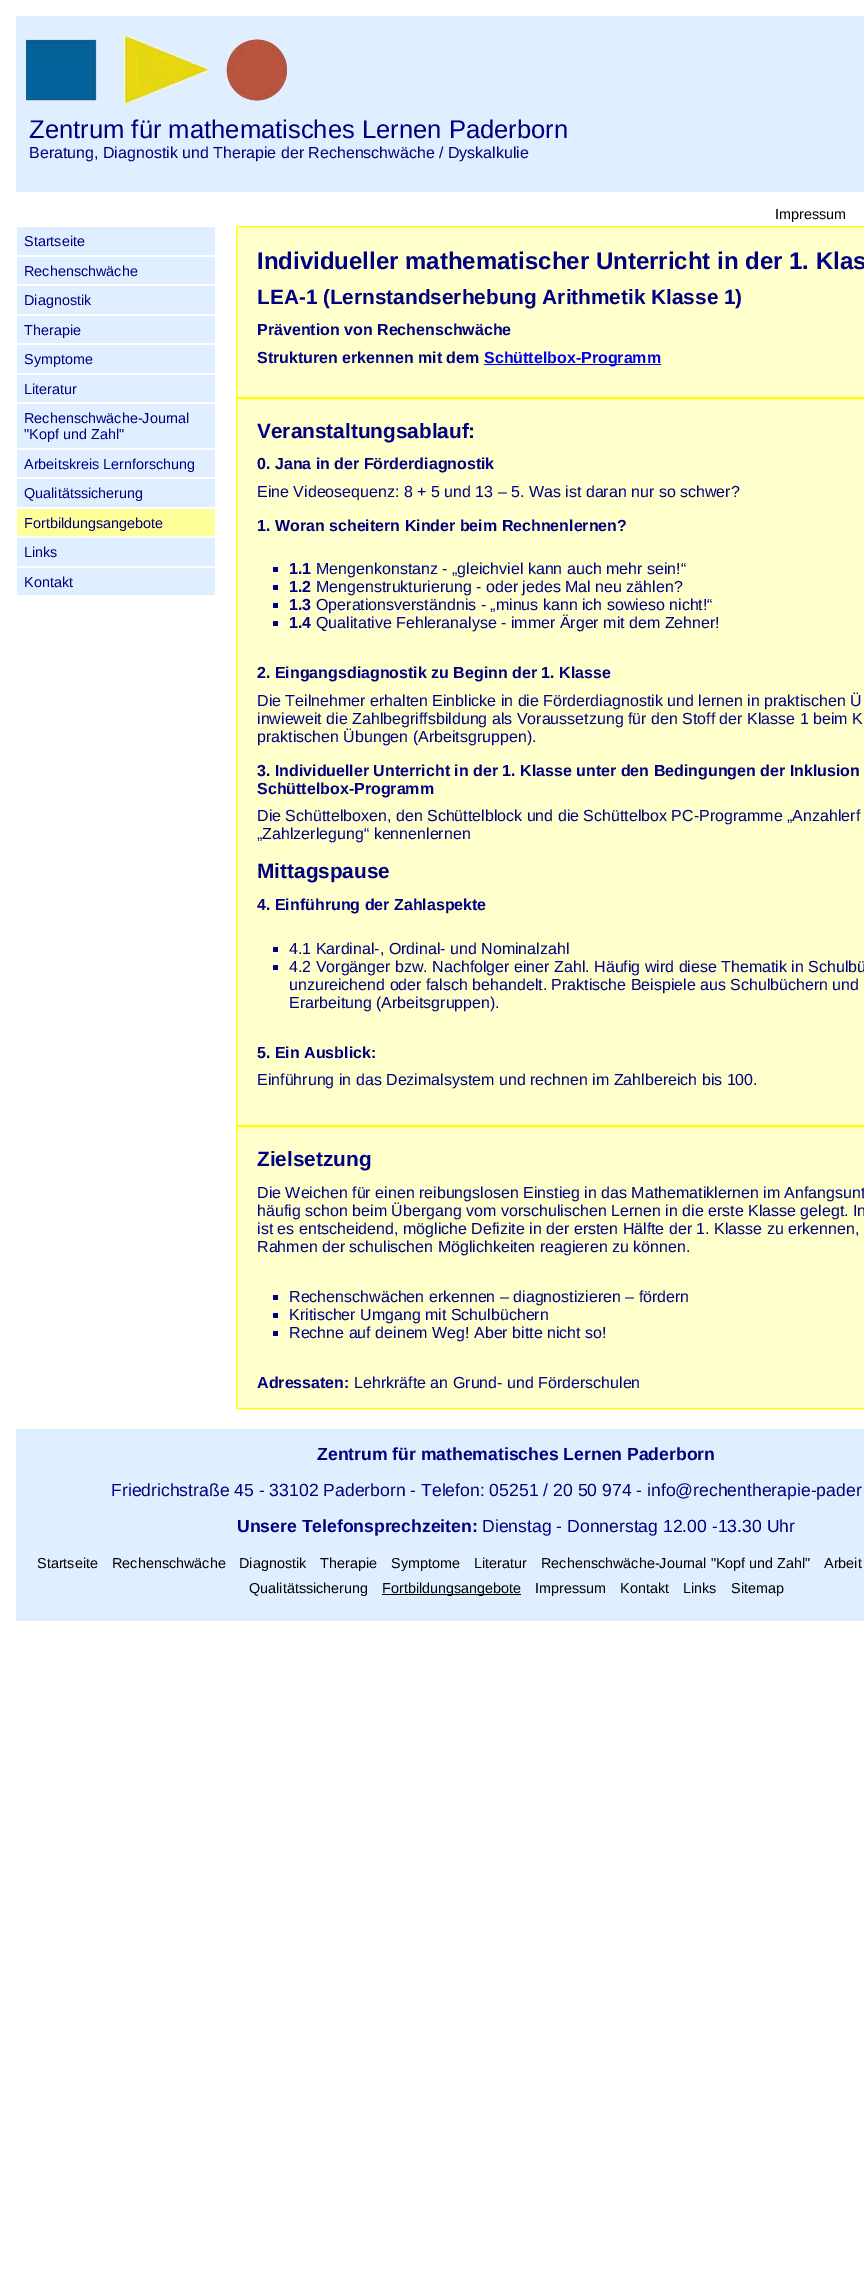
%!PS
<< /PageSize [864 2294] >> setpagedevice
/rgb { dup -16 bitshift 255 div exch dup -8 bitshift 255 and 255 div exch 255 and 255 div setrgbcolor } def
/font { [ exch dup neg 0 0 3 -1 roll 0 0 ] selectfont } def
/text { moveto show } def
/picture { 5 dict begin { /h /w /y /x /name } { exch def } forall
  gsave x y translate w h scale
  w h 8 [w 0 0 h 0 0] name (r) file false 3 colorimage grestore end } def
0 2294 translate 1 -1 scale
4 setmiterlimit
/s1 { /LiberationSans-Regular 25.6 font 16#000080 rgb } def
/s2 { /LiberationSans-Regular 16 font 16#000080 rgb } def
/s3 { /LiberationSans-Regular 14.4 font 16#000000 rgb } def
/s4 { /LiberationSans-Regular 14.4 font 16#000080 rgb } def
/s5 { /LiberationSans-Bold 24 font 16#000080 rgb } def
/s6 { /LiberationSans-Bold 20.8 font 16#000080 rgb } def
/s7 { /LiberationSans-Bold 16 font 16#000080 rgb } def
/s8 { /LiberationSans-Bold 16 font 16#0000EE rgb } def
/s9 { /LiberationSans-Bold 17.6 font 16#000080 rgb } def
/s10 { /LiberationSans-Regular 17.6 font 16#000080 rgb } def
16#FFFFFF rgb
0 0 864 2294 rectfill
16#DFEFFF rgb
16 16 848 176 rectfill
(pic1.raw) 26 36 261 68 picture
s1
(Zentrum für mathematisches Lernen Paderborn) 29 138 text
s2
(Beratung, Diagnostik und Therapie der Rechenschwäche / Dyskalkulie) 29 158 text
s3
(Impressum) 775 219 text
16#DFEFFF rgb
17 227 198 28 rectfill
s4
(Startseite) 24 246 text
16#DFEFFF rgb
17 257 198 27 rectfill
s4
(Rechenschwäche) 24 276 text
16#DFEFFF rgb
17 286 198 28 rectfill
s4
(Diagnostik) 24 305 text
16#DFEFFF rgb
17 316 198 27 rectfill
s4
(Therapie) 24 335 text
16#DFEFFF rgb
17 345 198 28 rectfill
s4
(Symptome) 24 364 text
16#DFEFFF rgb
17 375 198 27 rectfill
s4
(Literatur) 24 394 text
16#DFEFFF rgb
17 404 198 44 rectfill
s4
(Rechenschwäche-Journal) 24 423 text
("Kopf und Zahl") 24 439 text
16#DFEFFF rgb
17 450 198 27 rectfill
s4
(Arbeitskreis Lernforschung) 24 469 text
16#DFEFFF rgb
17 479 198 28 rectfill
s4
(Qualitätssicherung) 24 498 text
16#FFFF99 rgb
17 509 198 27 rectfill
s4
(Fortbildungsangebote) 24 528 text
16#DFEFFF rgb
17 538 198 28 rectfill
s4
(Links) 24 557 text
16#DFEFFF rgb
17 568 198 27 rectfill
s4
(Kontakt) 24 587 text
16#FFFFCC rgb
236.5 226.5 moveto 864.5 226.5 lineto 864.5 397.5 lineto 236.5 397.5 lineto closepath gsave fill grestore
16#FFFF00 rgb
stroke
s5
(Individueller mathematischer Unterricht in der 1. Klas) 257 269 text
s6
(LEA-1 \(Lernstandserhebung Arithmetik Klasse 1\)) 257 304 text
s7
(Prävention von Rechenschwäche) 257 335 text
(Strukturen erkennen mit dem) 257 363 text
16#0000EE rgb
484 364 177 1 rectfill
(Schüttelbox-Programm) 484 363 text
16#FFFFCC rgb
236.5 398.5 moveto 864.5 398.5 lineto 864.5 1125.5 lineto 236.5 1125.5 lineto closepath gsave fill grestore
16#FFFF00 rgb
stroke
s6
(Veranstaltungsablauf:) 257 438 text
s7
(0. Jana in der Förderdiagnostik) 257 469 text
s2
(Eine Videosequenz: 8 + 5 und 13 – 5. Was ist daran nur so schwer?) 257 497 text
s7
(1. Woran scheitern Kinder beim Rechnenlernen?) 257 531 text
273 567 5 5 rectfill
(1.1) 289 574 text
s2
(Mengenkonstanz - „gleichviel kann auch mehr sein!“) 316 574 text
273 585 5 5 rectfill
s7
(1.2) 289 592 text
s2
(Mengenstrukturierung - oder jedes Mal neu zählen?) 316 592 text
273 603 5 5 rectfill
s7
(1.3) 289 610 text
s2
(Operationsverständnis - „minus kann ich sowieso nicht!“) 316 610 text
273 621 5 5 rectfill
s7
(1.4) 289 628 text
s2
(Qualitative Fehleranalyse - immer Ärger mit dem Zehner!) 316 628 text
s7
(2. Eingangsdiagnostik zu Beginn der 1. Klasse) 257 678 text
s2
(Die Teilnehmer erhalten Einblicke in die Förderdiagnostik und lernen in praktischen Ü) 257 706 text
(inwieweit die Zahlbegriffsbildung als Voraussetzung für den Stoff der Klasse 1 beim K) 257 724 text
(praktischen Übungen \(Arbeitsgruppen\).) 257 742 text
s7
(3. Individueller Unterricht in der 1. Klasse unter den Bedingungen der Inklusion) 257 776 text
(Schüttelbox-Programm) 257 794 text
s2
(Die Schüttelboxen, den Schüttelblock und die Schüttelbox PC-Programme „Anzahlerf) 257 821 text
(„Zahlzerlegung“ kennenlernen) 257 839 text
s6
(Mittagspause) 257 878 text
s7
(4. Einführung der Zahlaspekte) 257 910 text
273 947 5 5 rectfill
s2
(4.1 Kardinal-, Ordinal- und Nominalzahl) 289 954 text
273 965 5 5 rectfill
(4.2 Vorgänger bzw. Nachfolger einer Zahl. Häufig wird diese Thematik in Schulbü) 289 972 text
(unzureichend oder falsch behandelt. Praktische Beispiele aus Schulbüchern und) 289 990 text
(Erarbeitung \(Arbeitsgruppen\).) 289 1008 text
s7
(5. Ein Ausblick:) 257 1058 text
s2
(Einführung in das Dezimalsystem und rechnen im Zahlbereich bis 100.) 257 1085 text
16#FFFFCC rgb
236.5 1126.5 moveto 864.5 1126.5 lineto 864.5 1408.5 lineto 236.5 1408.5 lineto closepath gsave fill grestore
16#FFFF00 rgb
stroke
s6
(Zielsetzung) 257 1166 text
s2
(Die Weichen für einen reibungslosen Einstieg in das Mathematiklernen im Anfangsunt) 257 1198 text
(häufig schon beim Übergang vom vorschulischen Lernen in die erste Klasse gelegt. In) 257 1216 text
(ist es entscheidend, mögliche Defizite in der ersten Hälfte der 1. Klasse zu erkennen,) 257 1234 text
(Rahmen der schulischen Möglichkeiten reagieren zu können.) 257 1252 text
273 1295 5 5 rectfill
(Rechenschwächen erkennen – diagnostizieren – fördern) 289 1302 text
273 1313 5 5 rectfill
(Kritischer Umgang mit Schulbüchern) 289 1320 text
273 1331 5 5 rectfill
(Rechne auf deinem Weg! Aber bitte nicht so!) 289 1338 text
s7
(Adressaten:) 257 1388 text
s2
(Lehrkräfte an Grund- und Förderschulen) 354 1388 text
16#DFEFFF rgb
16 1429 848 192 rectfill
s9
(Zentrum für mathematisches Lernen Paderborn) 317 1460 text
s10
(Friedrichstraße 45 - 33102 Paderborn - Telefon: 05251 / 20 50 974 - info@rechentherapie-pader) 111 1496 text
s9
(Unsere Telefonsprechzeiten:) 237 1532 text
s10
(Dienstag - Donnerstag 12.00 -13.30 Uhr) 482 1532 text
s3
(Startseite) 37 1568 text
(Rechenschwäche) 112 1568 text
(Diagnostik) 239 1568 text
(Therapie) 320 1568 text
(Symptome) 391 1568 text
(Literatur) 474 1568 text
(Rechenschwäche-Journal "Kopf und Zahl") 541 1568 text
(Arbeit) 824 1568 text
(Qualitätssicherung) 249 1593 text
382 1594 139 1 rectfill
(Fortbildungsangebote) 382 1593 text
(Impressum) 535 1593 text
(Kontakt) 620 1593 text
(Links) 683 1593 text
(Sitemap) 731 1593 text
showpage
